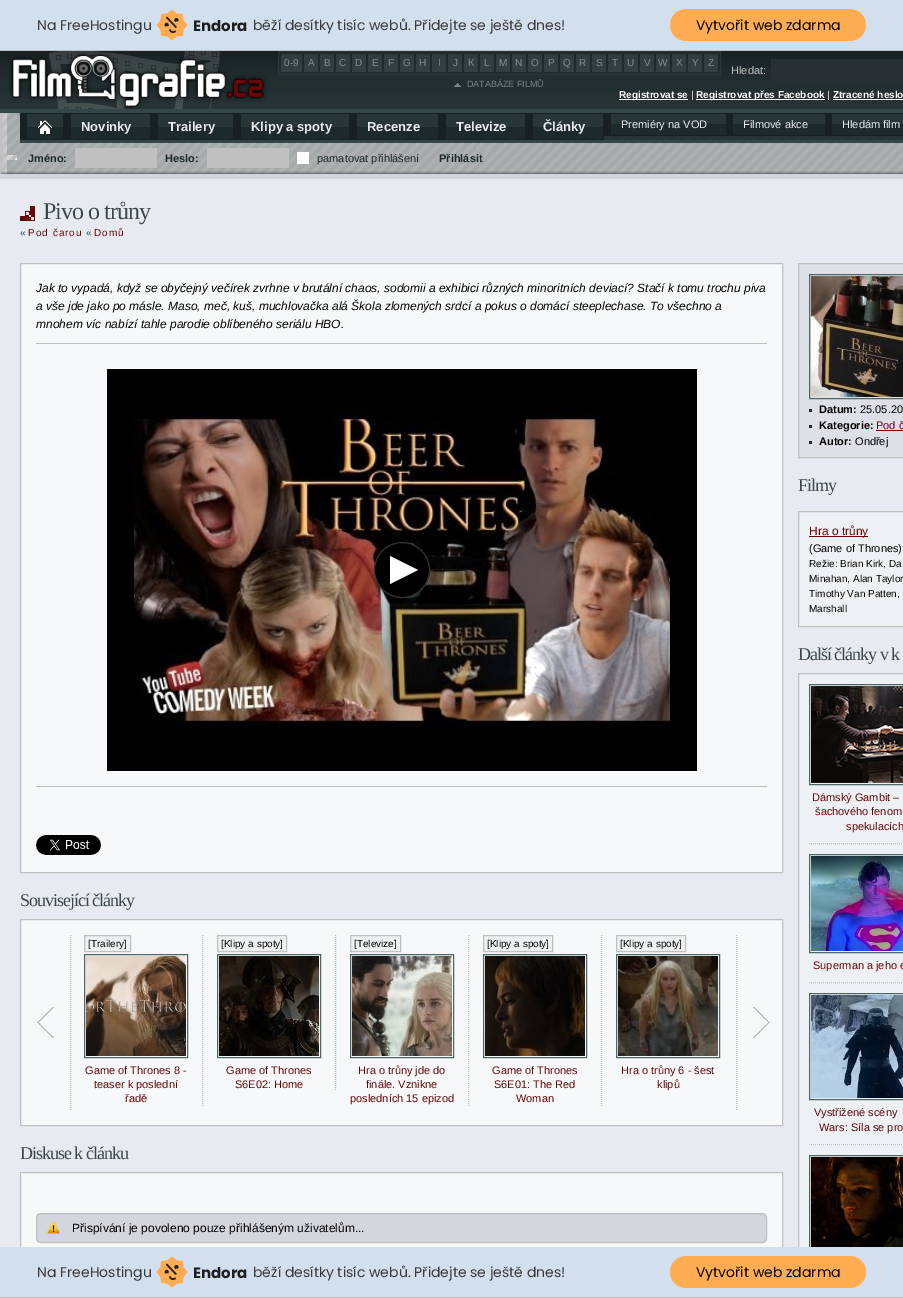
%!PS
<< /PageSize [903 1298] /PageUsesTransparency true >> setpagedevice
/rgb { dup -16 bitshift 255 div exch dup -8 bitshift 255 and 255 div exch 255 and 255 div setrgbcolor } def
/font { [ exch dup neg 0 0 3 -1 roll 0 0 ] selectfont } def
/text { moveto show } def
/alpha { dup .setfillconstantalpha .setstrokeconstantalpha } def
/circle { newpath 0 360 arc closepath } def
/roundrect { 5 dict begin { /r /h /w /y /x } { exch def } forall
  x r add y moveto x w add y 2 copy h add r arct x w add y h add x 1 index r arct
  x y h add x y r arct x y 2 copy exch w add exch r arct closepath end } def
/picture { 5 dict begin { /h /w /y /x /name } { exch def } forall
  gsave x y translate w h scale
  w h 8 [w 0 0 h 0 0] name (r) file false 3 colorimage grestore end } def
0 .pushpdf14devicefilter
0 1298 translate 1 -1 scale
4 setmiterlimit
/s1 { /Poppins-Regular 14 font 16#3A3A3A rgb } def
/s2 { /Poppins-Bold 15 font 16#1E1E1E rgb } def
/s3 { /Poppins-Regular 14 font 16#000000 rgb } def
/s4 { /LiberationSans-Regular 10 font 16#848B8C rgb } def
/s5 { /LiberationSans-Regular 9 font 16#7C8283 rgb } def
/s6 { /LiberationSans-Regular 11 font 16#C0C0C0 rgb } def
/s7 { /LiberationSans-Bold 10 font 16#FFFFFF rgb } def
/s8 { /LiberationSans-Regular 10 font 16#FFFFFF rgb } def
/s9 { /LiberationSans-Bold 13 font 16#E8EAF2 rgb } def
/s10 { /LiberationSans-Regular 11 font 16#E8EAF2 rgb } def
/s11 { /LiberationSans-Bold 11 font 16#1D2A2B rgb } def
/s12 { /LiberationSans-Regular 11 font 16#1D2A2B rgb } def
/s13 { /LiberationSans-Regular 10 font 16#14484A rgb } def
/s14 { /LiberationSans-Italic 12 font 16#000000 rgb } def
/s15 { /LiberationSans-Regular 10 font 16#000000 rgb } def
/s16 { /LiberationSans-Regular 11 font 16#670708 rgb } def
/s17 { /LiberationSans-Regular 12 font 16#000000 rgb } def
/s18 { /LiberationSans-Bold 11 font 16#000000 rgb } def
/s19 { /LiberationSans-Regular 11 font 16#000000 rgb } def
/s20 { /LiberationSans-Regular 12 font 16#670708 rgb } def
16#C0C0C0 rgb
0 0 903 1298 rectfill
16#D2DFEF rgb
0 0 903 50 rectfill
16#BEBFC4 rgb
0 50 903 1 rectfill
s1
(Na FreeHostingu) 37 30 text
(pic1.raw) 156 9 32 32 picture
s2
(Endora) 193 31 text
s1
(běží desítky tisíc webů. Přidejte se ještě dnes!) 253 30 text
16#FFAC52 rgb
670 9 196 32 16 roundrect fill
s3
(Vytvořit web zdarma) 696 30 text
(pic2.raw) 0 51 903 58 picture
(pic3.raw) 9 51 258 58 picture
0.4 alpha
16#283031 rgb
278 51 443 24 rectfill
16#354648 rgb
278.5 51.5 442 23 rectstroke
16#4A5C5E rgb
281 54 21 18 rectfill
1 alpha
s4
(0-9) 284 66 text
0.4 alpha
16#4A5C5E rgb
304 54 14 18 rectfill
1 alpha
s4
(A) 308 66 text
0.4 alpha
16#4A5C5E rgb
320 54 14 18 rectfill
1 alpha
s4
(B) 324 66 text
0.4 alpha
16#4A5C5E rgb
336 54 14 18 rectfill
1 alpha
s4
(C) 339 66 text
0.4 alpha
16#4A5C5E rgb
352 54 14 18 rectfill
1 alpha
s4
(D) 355 66 text
0.4 alpha
16#4A5C5E rgb
368 54 14 18 rectfill
1 alpha
s4
(E) 372 66 text
0.4 alpha
16#4A5C5E rgb
384 54 14 18 rectfill
1 alpha
s4
(F) 388 66 text
0.4 alpha
16#4A5C5E rgb
400 54 14 18 rectfill
1 alpha
s4
(G) 403 66 text
0.4 alpha
16#4A5C5E rgb
416 54 14 18 rectfill
1 alpha
s4
(H) 419 66 text
0.4 alpha
16#4A5C5E rgb
432 54 14 18 rectfill
1 alpha
s4
(I) 438 66 text
0.4 alpha
16#4A5C5E rgb
448 54 14 18 rectfill
1 alpha
s4
(J) 453 66 text
0.4 alpha
16#4A5C5E rgb
464 54 14 18 rectfill
1 alpha
s4
(K) 468 66 text
0.4 alpha
16#4A5C5E rgb
480 54 14 18 rectfill
1 alpha
s4
(L) 484 66 text
0.4 alpha
16#4A5C5E rgb
496 54 14 18 rectfill
1 alpha
s4
(M) 499 66 text
0.4 alpha
16#4A5C5E rgb
512 54 14 18 rectfill
1 alpha
s4
(N) 515 66 text
0.4 alpha
16#4A5C5E rgb
528 54 14 18 rectfill
1 alpha
s4
(O) 531 66 text
0.4 alpha
16#4A5C5E rgb
544 54 14 18 rectfill
1 alpha
s4
(P) 548 66 text
0.4 alpha
16#4A5C5E rgb
560 54 14 18 rectfill
1 alpha
s4
(Q) 563 66 text
0.4 alpha
16#4A5C5E rgb
576 54 14 18 rectfill
1 alpha
s4
(R) 579 66 text
0.4 alpha
16#4A5C5E rgb
592 54 14 18 rectfill
1 alpha
s4
(S) 596 66 text
0.4 alpha
16#4A5C5E rgb
608 54 14 18 rectfill
1 alpha
s4
(T) 612 66 text
0.4 alpha
16#4A5C5E rgb
624 54 14 18 rectfill
1 alpha
s4
(U) 627 66 text
0.4 alpha
16#4A5C5E rgb
640 54 14 18 rectfill
1 alpha
s4
(V) 644 66 text
0.4 alpha
16#4A5C5E rgb
656 54 14 18 rectfill
1 alpha
s4
(W) 658 66 text
0.4 alpha
16#4A5C5E rgb
672 54 14 18 rectfill
1 alpha
s4
(X) 676 66 text
0.4 alpha
16#4A5C5E rgb
688 54 14 18 rectfill
1 alpha
s4
(Y) 692 66 text
0.4 alpha
16#4A5C5E rgb
704 54 14 18 rectfill
1 alpha
s4
(Z) 708 66 text
0.4 alpha
16#283031 rgb
447 75 105 6 rectfill
1 alpha
(pic4.raw) 454 83 7 4 picture
s5
(DATABÁZE FILMŮ) 467 87 text
s6
(Hledat:) 731 74 text
16#283031 rgb
771 59 132 22 rectfill
16#FFFFFF rgb
619 99 69 1 rectfill
s7
(Registrovat se) 619 98 text
s8
(|) 691 98 text
696 99 129 1 rectfill
s7
(Registrovat přes Facebook) 696 98 text
s8
(|) 827 98 text
s7
(Ztracené heslo) 833 98 text
833 99 70 1 rectfill
(pic5.raw) 1 113 902 61 picture
16#D2D4DB rgb
0 174 903 5 rectfill
16#354648 rgb
0 109 903 4 rectfill
0.15 alpha
16#283636 rgb
17 113 3 3 rectfill
1 alpha
16#293638 rgb
27 114 876 26 rectfill
16#354648 rgb
20 140 883 3 rectfill
16#182122 rgb
20 113 883 1 rectfill
63 113 1 27 rectfill
20 139 44 1 rectfill
20 113 7 27 rectfill
16#1D2A2B rgb
27 127 36 12 rectfill
(pic6.raw) 38 120 14 14 picture
16#182122 rgb
150 113 1 27 rectfill
64 139 87 1 rectfill
64 113 7 27 rectfill
16#1D2A2B rgb
71 127 79 12 rectfill
s9
(Novinky) 81 131 text
16#182122 rgb
233 113 1 27 rectfill
151 139 83 1 rectfill
151 113 7 27 rectfill
16#1D2A2B rgb
158 127 75 12 rectfill
s9
(Trailery) 168 131 text
16#182122 rgb
349 113 1 27 rectfill
234 139 116 1 rectfill
234 113 7 27 rectfill
16#1D2A2B rgb
241 127 108 12 rectfill
s9
(Klipy a spoty) 251 131 text
16#182122 rgb
438 113 1 27 rectfill
350 139 89 1 rectfill
350 113 7 27 rectfill
16#1D2A2B rgb
357 127 81 12 rectfill
s9
(Recenze) 367 131 text
16#182122 rgb
525 113 1 27 rectfill
439 139 87 1 rectfill
439 113 7 27 rectfill
16#1D2A2B rgb
446 127 79 12 rectfill
s9
(Televize) 456 131 text
16#182122 rgb
603 113 1 27 rectfill
526 139 78 1 rectfill
526 113 7 27 rectfill
16#1D2A2B rgb
533 127 70 12 rectfill
s9
(Články) 543 131 text
16#182122 rgb
604 135 299 1 rectfill
604 113 7 23 rectfill
726 114 7 21 rectfill
16#1D2A2B rgb
611 124 115 11 rectfill
s10
(Premiéry na VOD) 621 128 text
16#182122 rgb
825 114 7 21 rectfill
16#1D2A2B rgb
733 124 92 11 rectfill
s10
(Filmové akce) 743 128 text
16#1D2A2B rgb
832 124 71 11 rectfill
s10
(Hledám film) 842 128 text
s11
(Jméno:) 28 162 text
16#C0C0C0 rgb
75 148 82 20 rectfill
s11
(Heslo:) 165 162 text
16#C0C0C0 rgb
207 148 82 20 rectfill
16#FFFFFF rgb
297 152 12 12 rectfill
s12
(pamatovat přihlášení) 317 162 text
s11
(Přihlásit) 439 162 text
16#E8EAF2 rgb
0 179 903 1068 rectfill
(pic7.raw) 20 206 15 15 picture
/LiberationSerif-Regular 24 font
16#3B4849 rgb
43 219 moveto -1 0 (Pivo o trůny) ashow
s13
(«) 20 236 text
16#670708 rgb
28 236 moveto 1 0 (Pod čarou) ashow
s13
(«) 86 236 text
16#670708 rgb
94 236 moveto 1 0 (Domů) ashow
16#F7F8F9 rgb
20.5 263.5 moveto 782.5 263.5 lineto 782.5 872.5 lineto 20.5 872.5 lineto closepath gsave fill grestore
16#C0C0C0 rgb
stroke
36 343 731 1 rectfill
s14
(Jak to vypadá, když se obyčejný večírek zvrhne v brutální chaos, sodomii a exhibici různých minoritních deviací? Stačí k tomu trochu piva) 36 292 text
(a vše jde jako po másle. Maso, meč, kuš, muchlovačka alá Škola zlomených srdcí a pokus o domácí steeplechase. To všechno a) 36 310 text
(mnohem víc nabízí tahle parodie oblíbeného seriálu HBO.) 36 328 text
107 369 590 402 rectfill
(pic8.raw) 134 405 536 322 picture
402 570 27.5 circle gsave fill grestore
16#333333 rgb
stroke
16#FFFFFF rgb
418 570 moveto 390 584 lineto 390 556 lineto closepath fill
16#C0C0C0 rgb
36 786 731 1 rectfill
(pic9.raw) 36 835 65 20 picture
/LiberationSerif-Regular 18 font
16#3B4849 rgb
20 906 moveto -1 0 (Související články) ashow
16#F7F8F9 rgb
20.5 919.5 moveto 782.5 919.5 lineto 782.5 1125.5 lineto 20.5 1125.5 lineto closepath gsave fill grestore
16#C0C0C0 rgb
stroke
(pic10.raw) 37 1007 17 31 picture
[1 1] 0 setdash
70.5 935 moveto 70.5 1110 lineto stroke
202.5 935 moveto 202.5 1106 lineto stroke
16#EDF1F4 rgb
84.5 935.5 moveto 130.5 935.5 lineto 130.5 951.5 lineto 84.5 951.5 lineto closepath gsave fill grestore
16#C0C0C0 rgb
[] 0 setdash
stroke
s15
([Trailery]) 88 947 text
16#4F6667 rgb
84.5 954.5 103 103 rectstroke
(pic11.raw) 86 956 100 100 picture
s16
(Game of Thrones 8 -) 85 1074 text
(teaser k poslední) 94 1088 text
(řadě) 125 1102 text
16#C0C0C0 rgb
[1 1] 0 setdash
335.5 935 moveto 335.5 1091 lineto stroke
16#EDF1F4 rgb
217.5 935.5 moveto 286.5 935.5 lineto 286.5 951.5 lineto 217.5 951.5 lineto closepath gsave fill grestore
16#C0C0C0 rgb
[] 0 setdash
stroke
s15
([Klipy a spoty]) 221 947 text
16#4F6667 rgb
217.5 954.5 103 103 rectstroke
(pic12.raw) 219 956 100 100 picture
s16
(Game of Thrones) 226 1074 text
(S6E02: Home) 235 1088 text
16#C0C0C0 rgb
[1 1] 0 setdash
468.5 935 moveto 468.5 1106 lineto stroke
16#EDF1F4 rgb
350.5 935.5 moveto 400.5 935.5 lineto 400.5 951.5 lineto 350.5 951.5 lineto closepath gsave fill grestore
16#C0C0C0 rgb
[] 0 setdash
stroke
s15
([Televize]) 354 947 text
16#4F6667 rgb
350.5 954.5 103 103 rectstroke
(pic13.raw) 352 956 100 100 picture
s16
(Hra o trůny jde do) 358 1074 text
(finále. Vznikne) 366 1088 text
(posledních 15 epizod) 350 1102 text
16#C0C0C0 rgb
[1 1] 0 setdash
601.5 935 moveto 601.5 1106 lineto stroke
16#EDF1F4 rgb
483.5 935.5 moveto 552.5 935.5 lineto 552.5 951.5 lineto 483.5 951.5 lineto closepath gsave fill grestore
16#C0C0C0 rgb
[] 0 setdash
stroke
s15
([Klipy a spoty]) 487 947 text
16#4F6667 rgb
483.5 954.5 103 103 rectstroke
(pic14.raw) 485 956 100 100 picture
s16
(Game of Thrones) 492 1074 text
(S6E01: The Red) 494 1088 text
(Woman) 516 1102 text
16#EDF1F4 rgb
616.5 935.5 moveto 685.5 935.5 lineto 685.5 951.5 lineto 616.5 951.5 lineto closepath gsave fill grestore
16#C0C0C0 rgb
stroke
s15
([Klipy a spoty]) 620 947 text
16#4F6667 rgb
616.5 954.5 103 103 rectstroke
(pic15.raw) 618 956 100 100 picture
s16
(Hra o trůny 6 - šest) 621 1074 text
(klipů) 657 1088 text
(pic16.raw) 753 1007 17 31 picture
16#C0C0C0 rgb
[1 1] 0 setdash
736.5 935 moveto 736.5 1110 lineto stroke
/LiberationSerif-Regular 18 font
16#3B4849 rgb
20 1159 moveto -1 0 (Diskuse k článku) ashow
16#F7F8F9 rgb
21 1173 761 74 rectfill
16#C0C0C0 rgb
[] 0 setdash
20.5 1172.5 762 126 rectstroke
16#D4D6DE rgb
36 1213 731 30 5 roundrect fill
(pic17.raw) 47 1222 13 12 picture
16#C0C0C0 rgb
36.5 1213.5 730 29 4.5 roundrect stroke
s17
(Přispívání je povoleno pouze přihlášeným uživatelům...) 72 1232 text
16#DEE0E8 rgb
798.5 263.5 moveto 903.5 263.5 lineto 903.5 457.5 lineto 798.5 457.5 lineto closepath gsave fill grestore
16#C0C0C0 rgb
stroke
16#4F6667 rgb
809.5 274.5 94 124 rectstroke
(pic18.raw) 811 276 92 121 picture
16#262626 rgb
809 409 3 3 rectfill
s18
(Datum:) 819 413 text
s19
(25.05.20) 860 413 text
16#262626 rgb
809 425 3 3 rectfill
s18
(Kategorie:) 819 429 text
s16
(Pod č) 876 429 text
876 430 27 1 rectfill
16#262626 rgb
809 441 3 3 rectfill
s18
(Autor:) 819 445 text
s19
(Ondřej) 855 445 text
/LiberationSerif-Regular 18 font
16#3B4849 rgb
798 491 moveto -1 0 (Filmy) ashow
16#EDF1F4 rgb
798.5 511.5 moveto 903.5 511.5 lineto 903.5 626.5 lineto 798.5 626.5 lineto closepath gsave fill grestore
16#C0C0C0 rgb
stroke
16#670708 rgb
809 536 59 1 rectfill
s20
(Hra o trůny) 809 535 text
s19
(\(Game of Thrones\)) 809 552 text
s15
(Režie: Brian Kirk, Da) 809 567 text
(Minahan, Alan Taylor) 809 582 text
(Timothy Van Patten,) 809 597 text
(Marshall) 809 612 text
/LiberationSerif-Regular 18 font
16#3B4849 rgb
798 660 moveto -1 0 (Další články v k) ashow
16#EDF1F4 rgb
799 674 104 573 rectfill
16#C0C0C0 rgb
798.5 673.5 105 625 rectstroke
[1 1] 0 setdash
809 843.5 moveto 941 843.5 lineto stroke
16#4F6667 rgb
[] 0 setdash
809.5 684.5 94 100 rectstroke
(pic19.raw) 811 686 92 97 picture
s16
(Dámský Gambit –) 812 801 text
(šachového fenom) 815 815 text
(spekulacích) 846 830 text
16#C0C0C0 rgb
[1 1] 0 setdash
809 982.5 moveto 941 982.5 lineto stroke
16#4F6667 rgb
[] 0 setdash
809.5 854.5 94 98 rectstroke
(pic20.raw) 811 856 92 95 picture
s16
(Superman a jeho e) 813 969 text
16#C0C0C0 rgb
[1 1] 0 setdash
809 1144.5 moveto 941 1144.5 lineto stroke
16#4F6667 rgb
[] 0 setdash
809.5 993.5 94 106 rectstroke
(pic21.raw) 811 995 92 103 picture
s16
(Vystřižené scény) 814 1116 text
(Wars: Síla se pro) 819 1131 text
16#4F6667 rgb
809.5 1155.5 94 100 rectstroke
(pic22.raw) 811 1157 92 90 picture
16#D2DFEF rgb
0 1247 903 50 rectfill
16#BEBFC4 rgb
0 1297 903 1 rectfill
s1
(Na FreeHostingu) 37 1277 text
(pic1.raw) 156 1256 32 32 picture
s2
(Endora) 193 1278 text
s1
(běží desítky tisíc webů. Přidejte se ještě dnes!) 253 1277 text
16#FFAC52 rgb
670 1256 196 32 16 roundrect fill
s3
(Vytvořit web zdarma) 696 1277 text
.poppdf14devicefilter showpage
